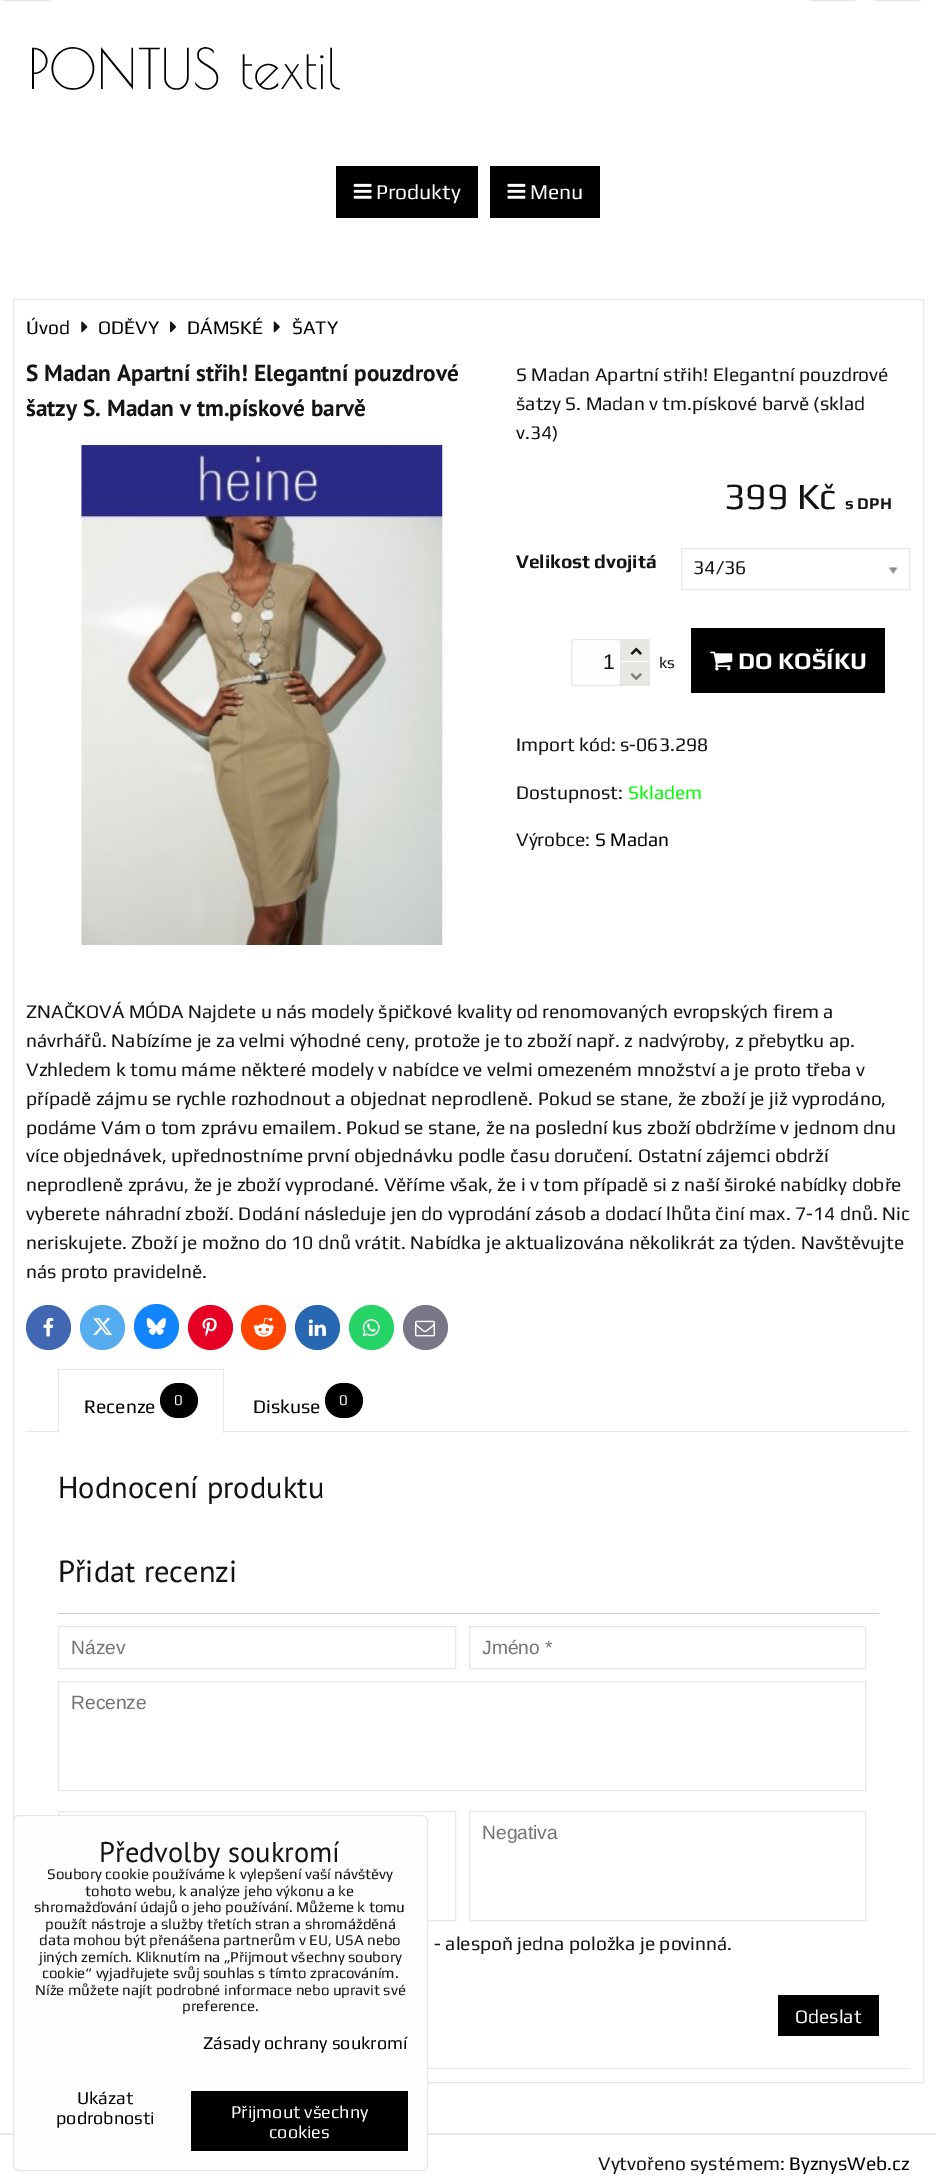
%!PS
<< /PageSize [936 2183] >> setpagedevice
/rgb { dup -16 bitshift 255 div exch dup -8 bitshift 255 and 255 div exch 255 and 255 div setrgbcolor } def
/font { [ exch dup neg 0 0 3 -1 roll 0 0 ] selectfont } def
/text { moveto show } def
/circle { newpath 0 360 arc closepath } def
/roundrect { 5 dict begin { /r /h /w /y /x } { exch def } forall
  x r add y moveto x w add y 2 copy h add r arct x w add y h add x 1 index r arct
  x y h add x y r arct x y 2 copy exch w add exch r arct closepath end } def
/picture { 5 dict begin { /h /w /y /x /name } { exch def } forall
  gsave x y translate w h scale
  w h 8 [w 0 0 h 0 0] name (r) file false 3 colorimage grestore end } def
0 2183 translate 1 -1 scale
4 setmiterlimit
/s1 { /PoiretOne-Regular 55 font 16#000000 rgb } def
/s2 { /Play-Regular 21 font 16#FFFFFF rgb } def
/s3 { /Play-Regular 19.2 font 16#000000 rgb } def
/s4 { /PTSans-Bold 23.25 font 16#141414 rgb } def
/s5 { /Play-Regular 19.2 font 16#141414 rgb } def
/s6 { /Play-Regular 37 font 16#141414 rgb } def
/s7 { /Play-Bold 16.5 font 16#141414 rgb } def
/s8 { /Play-Bold 19.2 font 16#141414 rgb } def
/s9 { /Play-Regular 19.5 font 16#141414 rgb } def
/s10 { /LiberationSans-Regular 21 font 16#141414 rgb } def
/s11 { /Play-Regular 16 font 16#141414 rgb } def
/s12 { /Play-Bold 24 font 16#FFFFFF rgb } def
/s13 { /Play-Regular 19.2 font 16#00FF00 rgb } def
/s14 { /Play-Regular 15 font 16#FFFFFF rgb } def
/s15 { /PTSans-Regular 30.5 font 16#141414 rgb } def
/s16 { /LiberationSans-Regular 19.2 font 16#757575 rgb } def
/s17 { /Play-Regular 19.2 font 16#FFFFFF rgb } def
/s18 { /PTSans-Regular 28.5 font 16#141414 rgb } def
/s19 { /Play-Regular 15 font 16#141414 rgb } def
/s20 { /Play-Regular 18 font 16#000000 rgb } def
/s21 { /Play-Regular 18 font 16#FFFFFF rgb } def
16#FFFFFF rgb
0 0 936 2183 rectfill
16#E8E7E1 rgb
3 setlinewidth
1.5 -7.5 51 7 4.5 roundrect stroke
807.5 -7.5 50 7 4.5 roundrect stroke
872.5 -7.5 50 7 4.5 roundrect stroke
s1
(PONTUS textil) 28 89 text
336 166 142 52 rectfill
(pic1.raw) 353 183 19 16 picture
s2
(Produkty) 376 199 text
16#000000 rgb
490 166 110 52 rectfill
(pic2.raw) 507 183 19 16 picture
s2
(Menu) 530 199 text
16#E8E7E1 rgb
1 setlinewidth
13.5 299.5 910 1783 rectstroke
s3
(Úvod) 26 334 text
(pic3.raw) 81 321 7 12 picture
(ODĚVY) 98 334 text
(pic4.raw) 170 321 7 12 picture
(DÁMSKÉ) 187 334 text
(pic5.raw) 273 321 7 12 picture
(ŠATY) 292 334 text
s4
(S Madan Apartní střih! Elegantní pouzdrové) 26 381 text
(šatzy S. Madan v tm.pískové barvě) 26 416 text
(pic6.raw) 81 445 362 500 picture
s5
(S Madan Apartní střih! Elegantní pouzdrové) 516 381 text
(šatzy S. Madan v tm.pískové barvě \(sklad) 516 410 text
(v.34\)) 516 439 text
s6
(399 Kč) 724 509 text
s7
(s DPH) 845 509 text
s8
(Velikost dvojitá) 516 568 text
16#E8E7E1 rgb
681.5 548.5 228 41 rectstroke
s9
(34/36) 693 574 text
(pic7.raw) 888 567 10 7 picture
16#E8E7E1 rgb
617 639 33 47 rectfill
16#FEFEFE rgb
571.5 639.5 49 46 3.5 roundrect gsave fill grestore
16#E8E7E1 rgb
stroke
s10
(1) 603 669 text
(pic8.raw) 630 647 12 8 picture
16#FFFFFF rgb
621 661 29 1 rectfill
(pic9.raw) 630 673 12 8 picture
s11
(ks) 659 668 text
16#000000 rgb
691 628 194 65 rectfill
(pic10.raw) 710 651 23 20 picture
s12
(DO KOŠÍKU) 738 669 text
s5
(Import kód: s-063.298) 516 751 text
(Dostupnost:) 516 799 text
s13
(Skladem) 628 799 text
s5
(Výrobce:) 516 846 text
s3
(S Madan) 595 846 text
s5
(ZNAČKOVÁ MÓDA Najdete u nás modely špičkové kvality od renomovaných evropských firem a) 26 1018 text
(návrhářů. Nabízíme je za velmi výhodné ceny, protože je to zboží např. z nadvýroby, z přebytku ap.) 26 1047 text
(Vzhledem k tomu máme některé modely v nabídce ve velmi omezeném množství a je proto třeba v) 26 1076 text
(případě zájmu se rychle rozhodnout a objednat neprodleně. Pokud se stane, že zboží je již vyprodáno,) 26 1105 text
(podáme Vám o tom zprávu emailem. Pokud se stane, že na poslední kus zboží obdržíme v jednom dnu) 26 1134 text
(více objednávek, upřednostníme první objednávku podle času doručení. Ostatní zájemci obdrží) 26 1162 text
(neprodleně zprávu, že je zboží vyprodané. Věříme však, že i v tom případě si z naší široké nabídky dobře) 26 1191 text
(vyberete náhradní zboží. Dodání následuje jen do vyprodání zásob a dodací lhůta činí max. 7-14 dnů. Nic) 26 1220 text
(neriskujete. Zboží je možno do 10 dnů vrátit. Nabídka je aktualizována několikrát za týden. Navštěvujte) 26 1249 text
(nás proto pravidelně.) 26 1278 text
16#4267B2 rgb
48.5 1327.5 22.5 circle fill
(pic11.raw) 43 1317 11 20 picture
16#55ACEE rgb
102.5 1327.5 22.5 circle fill
(pic12.raw) 93 1318 19 17 picture
16#1185FE rgb
156.5 1326.5 22.5 circle fill
(pic13.raw) 146 1318 20 17 picture
16#E60023 rgb
210.5 1327.5 22.5 circle fill
(pic14.raw) 202 1317 15 20 picture
16#FF4500 rgb
263.5 1327.5 22.5 circle fill
(pic15.raw) 253 1317 21 20 picture
16#2867B2 rgb
317.5 1327.5 22.5 circle fill
(pic16.raw) 308 1319 18 17 picture
16#25D366 rgb
371.5 1327.5 22.5 circle fill
(pic17.raw) 362 1319 18 18 picture
16#777788 rgb
425.5 1327.5 22.5 circle fill
(pic18.raw) 415 1320 20 17 picture
16#E8E7E1 rgb
26 1431 884 1 rectfill
16#FFFFFF rgb
59 1431 164 1 rectfill
16#E8E7E1 rgb
58 1369 166 1 rectfill
223 1369 1 64 rectfill
58 1369 1 64 rectfill
s3
(Recenze) 84 1413 text
160 1383 38 35 17.5 roundrect fill
s14
(0) 174 1405 text
s3
(Diskuse) 253 1413 text
325 1383 38 35 17.5 roundrect fill
s14
(0) 339 1405 text
16#E8E7E1 rgb
428 2068 482 1 rectfill
s15
(Hodnocení produktu) 58 1498 text
(Přidat recenzi) 58 1582 text
16#CCCCCC rgb
58 1613 821 1 rectfill
16#E8E7E1 rgb
58.5 1626.5 397 42 rectstroke
s16
(Název) 71 1654 text
16#E8E7E1 rgb
469.5 1626.5 396 42 rectstroke
gsave
483 1636 370 23 rectclip
s16
(Jméno *) 482 1654 text
grestore
58.5 1681.5 807 109 rectstroke
s16
(Recenze) 71 1709 text
16#E8E7E1 rgb
58.5 1811.5 397 109 rectstroke
469.5 1811.5 396 109 rectstroke
s16
(Negativa) 482 1839 text
s5
(- alespoň jedna položka je povinná.) 434 1950 text
16#000000 rgb
778 1995 101 41 rectfill
s17
(Odeslat) 795 2023 text
16#E8E7E1 rgb
0 2133 936 2 rectfill
s5
(Vytvořeno systémem:) 598 2170 text
s3
(ByznysWeb.cz) 789 2170 text
16#FEFEFE rgb
13.5 1815.5 414 355 5.5 roundrect gsave fill grestore
16#E8E7E1 rgb
stroke
s18
(Předvolby soukromí) 99 1862 text
s19
(Soubory cookie používáme k vylepšení vaší návštěvy) 47 1879 text
(tohoto webu, k analýze jeho výkonu a ke) 85 1896 text
(shromažďování údajů o jeho používání. Můžeme k tomu) 34 1912 text
(použít nástroje a služby třetích stran a shromážděná) 45 1929 text
(data mohou být přenášena partnerům v EU, USA nebo) 39 1945 text
(jiných zemích. Kliknutím na „Přijmout všechny soubory) 39 1962 text
(cookie“ vyjadřujete svůj souhlas s tímto zpracováním.) 42 1978 text
(Níže můžete najít podrobné informace nebo upravit své) 35 1995 text
(preference.) 182 2011 text
s20
(Zásady ochrany soukromí) 203 2049 text
(Ukázat) 77 2104 text
(podrobnosti) 56 2124 text
191 2091 217 60 rectfill
s21
(Přijmout všechny) 231 2118 text
(cookies) 269 2138 text
showpage
